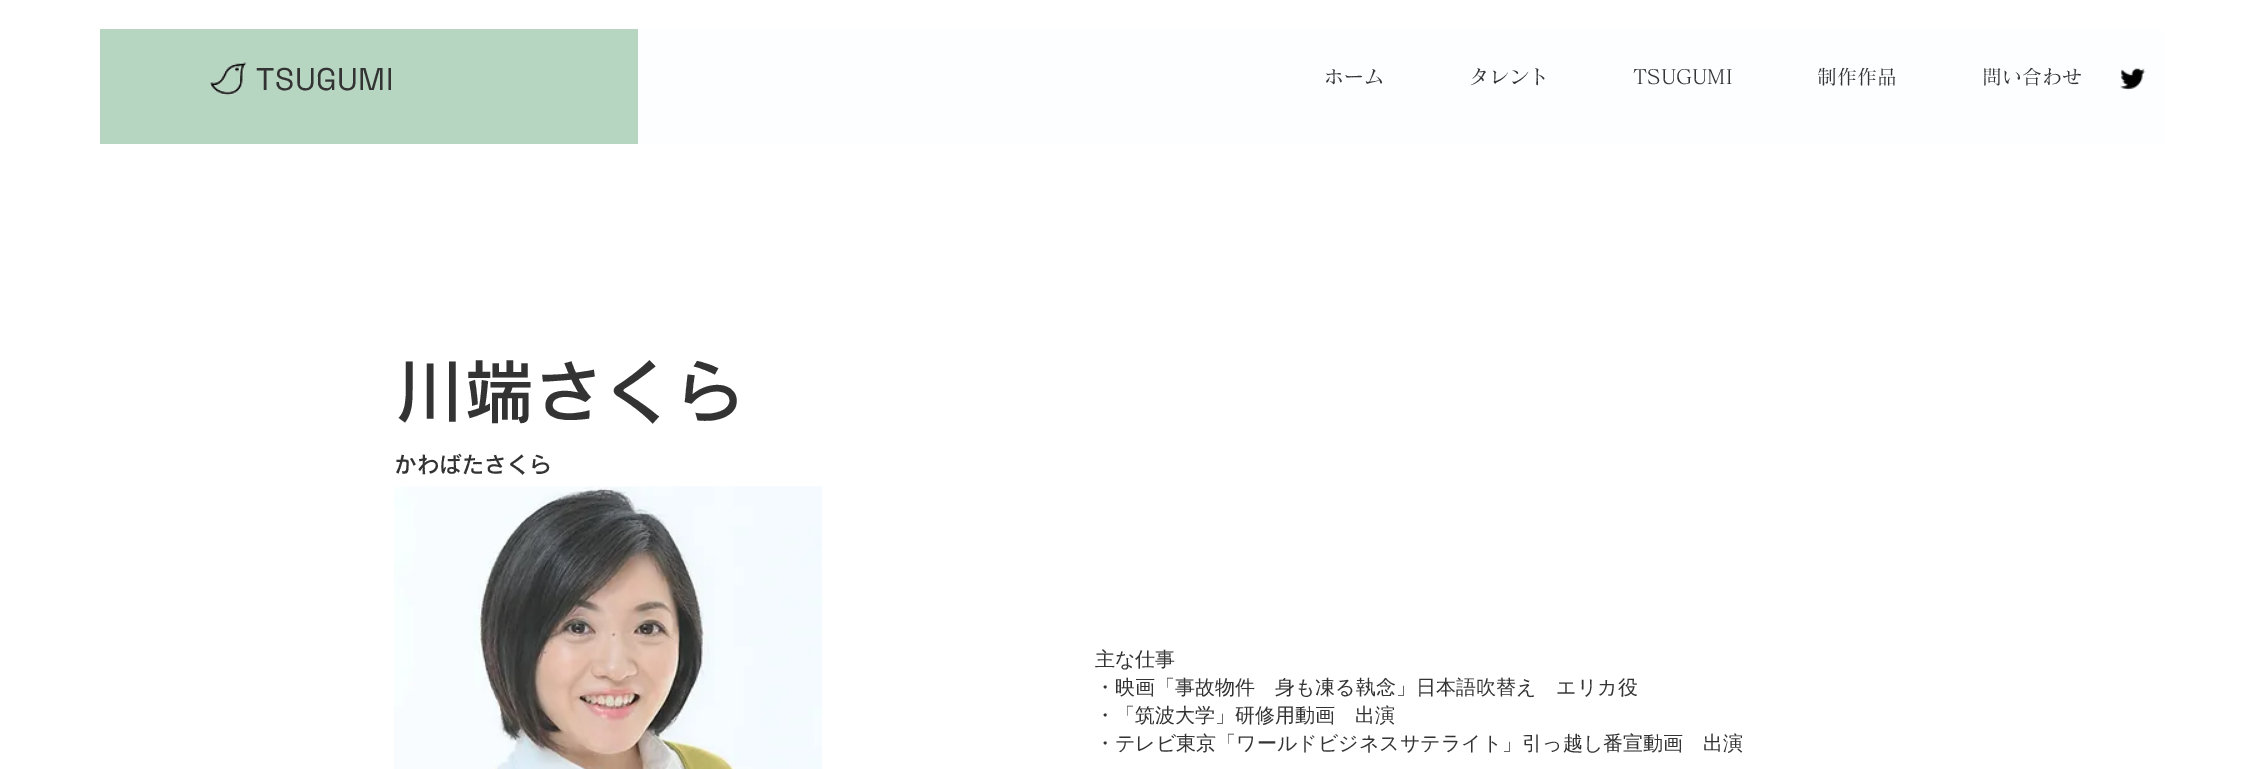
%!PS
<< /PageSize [2263 769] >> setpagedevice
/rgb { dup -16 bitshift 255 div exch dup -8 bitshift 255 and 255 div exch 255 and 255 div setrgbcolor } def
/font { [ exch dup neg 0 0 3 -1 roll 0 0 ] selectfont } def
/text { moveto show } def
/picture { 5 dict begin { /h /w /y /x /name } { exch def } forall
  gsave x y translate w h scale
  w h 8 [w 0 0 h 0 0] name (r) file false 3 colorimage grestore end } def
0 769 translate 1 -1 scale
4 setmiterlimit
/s1 { /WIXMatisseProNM-Medium 20 font 16#333333 rgb } def
/s2 { /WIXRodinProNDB-SemiBold 70 font 16#333333 rgb } def
/s3 { /WIXRodinProNDB-SemiBold 22.5 font 16#333333 rgb } def
/s4 { /WenQuanYiZenHei-Medium 20 font 16#333333 rgb } def
16#FFFFFF rgb
0 0 2263 769 rectfill
16#B6D6C1 rgb
100 29 538 115 rectfill
(pic1.raw) 210 61 37 35 picture
/SpaceGrotesk-Regular 31.25 font
16#333333 rgb
256 90 moveto 0.5 0 (TSUGUMI) ashow
16#FCFEFF rgb
638 29 1526 115 rectfill
s1
(ホーム) 1324 84 text
(タレント) 1469 84 text
(TSUGUMI) 1633 84 text
(制作作品) 1817 84 text
(問い合わせ) 1982 84 text
(pic2.raw) 2120 68 26 22 picture
s2
(川端さくら) 394 418 text
s3
(かわばたさくら) 394 473 text
(pic3.raw) 394 486 428 283 picture
s4
(主な仕事) 1095 666 text
(・映画「事故物件　身も凍る執念」日本語吹替え　エリカ役) 1095 694 text
(・「筑波大学」研修用動画　出演) 1095 722 text
(・テレビ東京「ワールドビジネスサテライト」引っ越し番宣動画　出演) 1095 750 text
showpage
